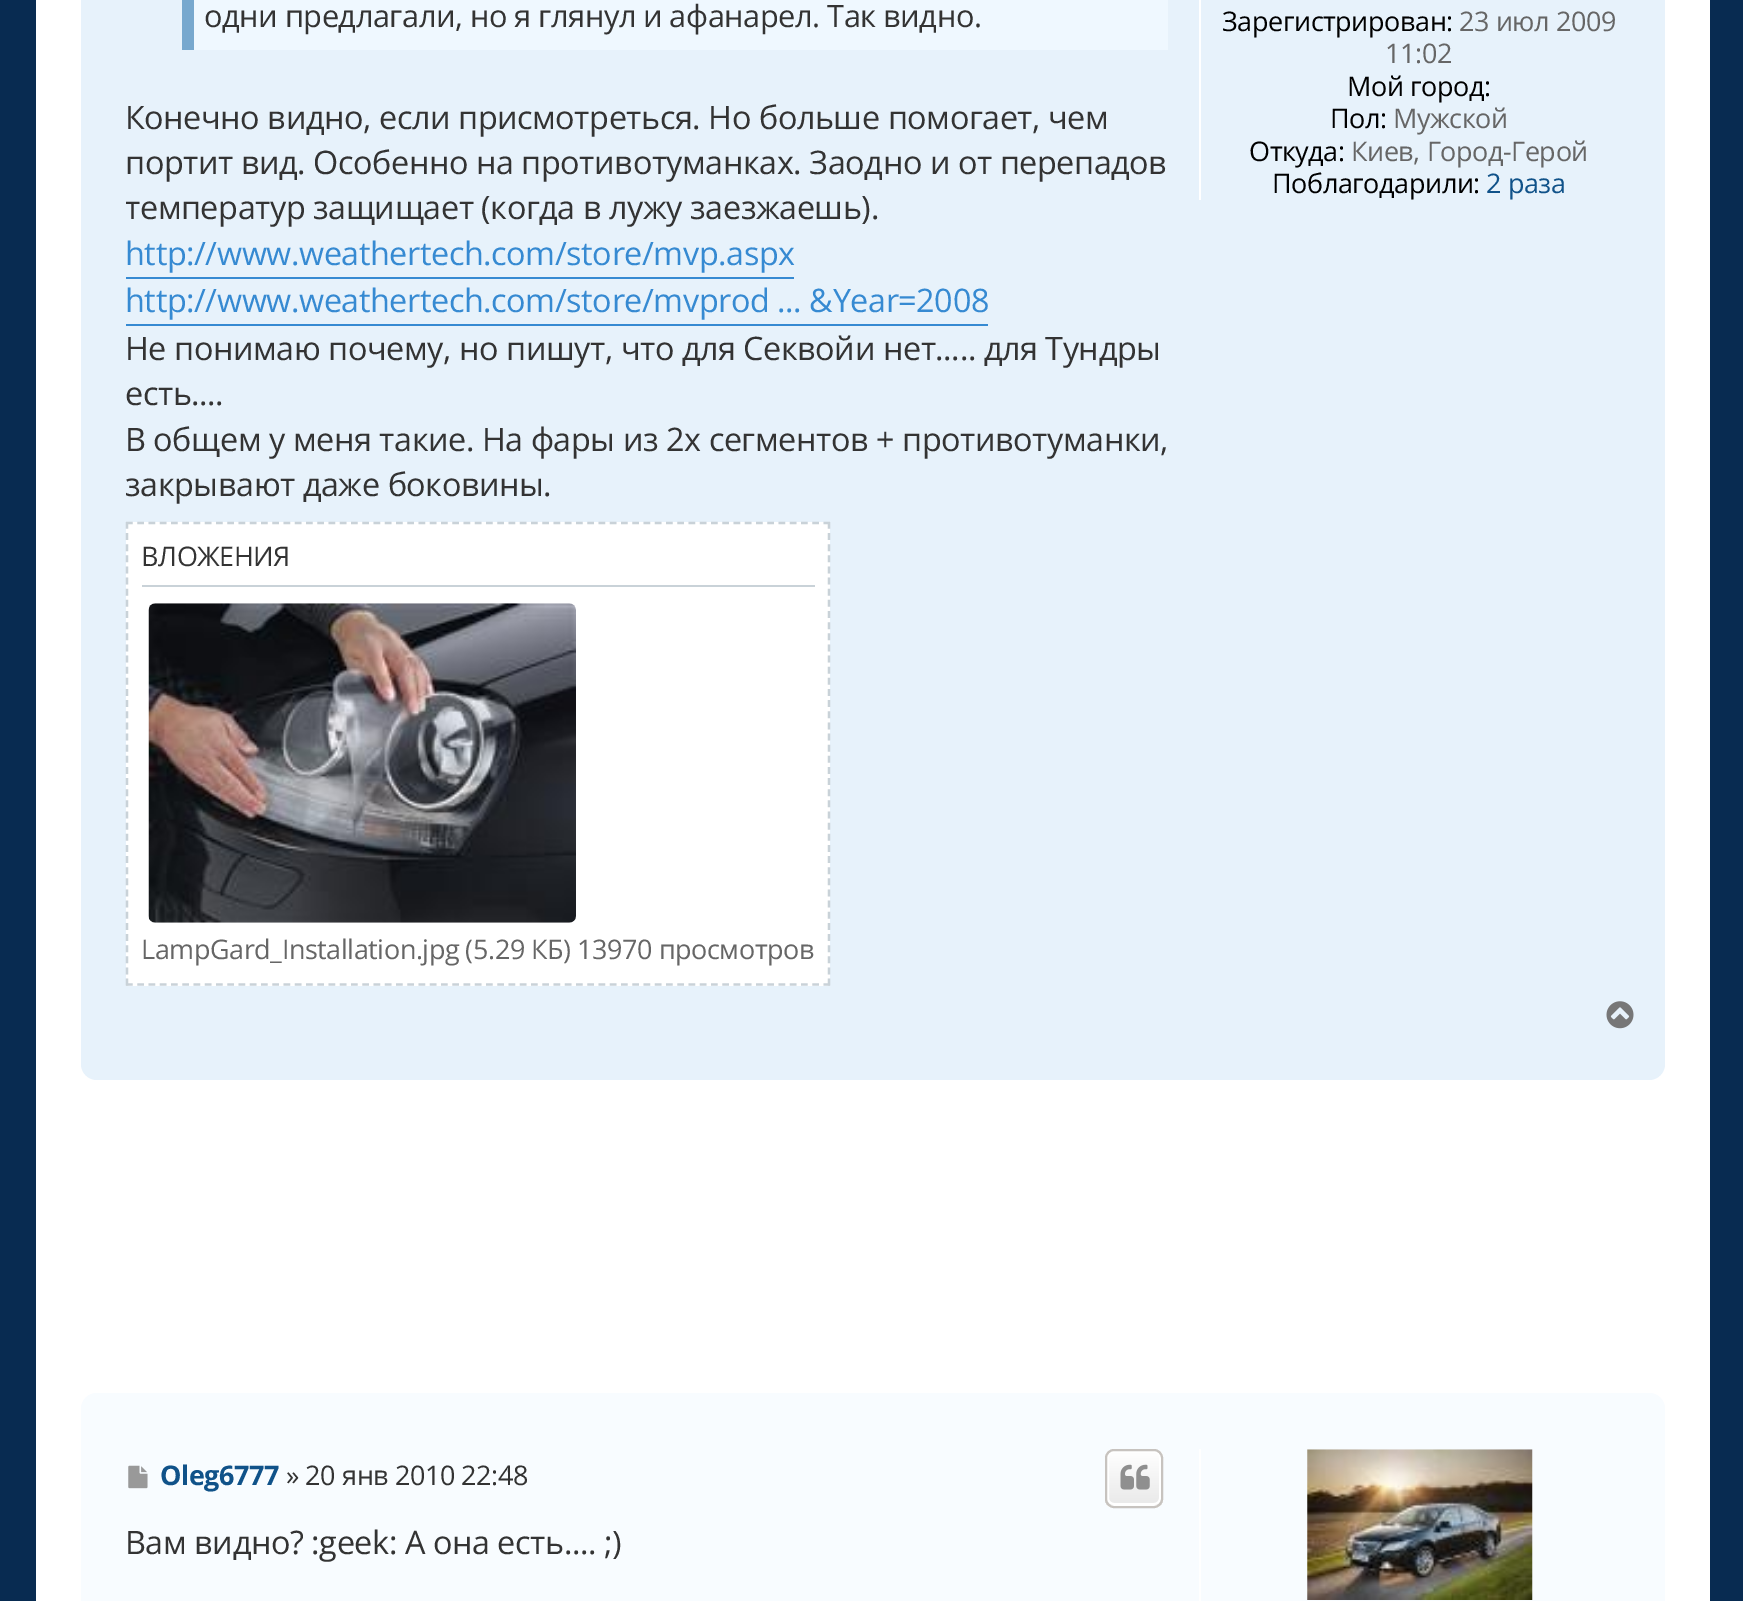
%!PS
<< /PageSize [1743 1601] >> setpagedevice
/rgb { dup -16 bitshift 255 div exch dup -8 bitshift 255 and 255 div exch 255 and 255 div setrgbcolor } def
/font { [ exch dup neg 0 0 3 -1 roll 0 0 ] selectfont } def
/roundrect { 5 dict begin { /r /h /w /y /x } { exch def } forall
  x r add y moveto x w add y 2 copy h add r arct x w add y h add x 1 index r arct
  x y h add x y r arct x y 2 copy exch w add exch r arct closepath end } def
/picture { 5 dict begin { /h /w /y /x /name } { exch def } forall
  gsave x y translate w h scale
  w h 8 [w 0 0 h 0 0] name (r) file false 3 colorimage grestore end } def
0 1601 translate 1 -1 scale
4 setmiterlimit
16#082B51 rgb
0 0 1743 1601 rectfill
16#FFFFFF rgb
36 0 1674 1601 rectfill
16#E7F2FB rgb
81 -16 1584 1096 16 roundrect fill
16#EFF8FF rgb
194 0 974 50 rectfill
16#77A8CE rgb
182 0 12 50 rectfill
/OpenSans-Regular 30.75 font
16#333333 rgb
204 27 moveto -0.25 0 32 -0.45 0 (одни предлагали, но я глянул и афанарел. Так видно.) awidthshow
/OpenSans-Regular 32.4 font
125 129 moveto -0.45 0 (Конечно видно, если присмотреться. Но больше помогает, чем) ashow
125 174 moveto -0.45 0 (портит вид. Особенно на противотуманках. Заодно и от перепадов) ashow
gsave
126 0 1044 511 rectclip
125 219 moveto -0.45 0 (температур защищает \(когда в лужу заезжаешь\).) ashow
grestore
16#368AD2 rgb
126 277 668 2 rectfill
125 265 moveto -0.45 0 (http://www.weathertech.com/store/mvp.aspx) ashow
126 324 862 2 rectfill
125 312 moveto -0.45 0 (http://www.weathertech.com/store/mvprod ... &Year=2008) ashow
16#333333 rgb
125 360 moveto -0.45 0 (Не понимаю почему, но пишут, что для Секвойи нет..... для Тундры) ashow
125 405 moveto -0.45 0 (есть....) ashow
125 451 moveto -0.45 0 (В общем у меня такие. На фары из 2х сегментов + противотуманки,) ashow
125 496 moveto -0.45 0 (закрывают даже боковины.) ashow
16#FFFFFF rgb
126 522 704 464 rectfill
16#C9D2D8 rgb
2.2 setlinewidth
[6.75 4.5] 0 setdash
126 523 moveto 830 523 lineto stroke
[6.75 4.39] 0 setdash
829 522 moveto 829 985.5 lineto stroke
[6.75 4.5] 0 setdash
126 984.5 moveto 830 984.5 lineto stroke
[6.75 4.39] 0 setdash
127 522 moveto 127 985.5 lineto stroke
/OpenSans-Regular 27 font
16#333333 rgb
141 566 moveto -0.45 0 (ВЛОЖЕНИЯ) ashow
16#C9D2D8 rgb
142 585 673 2 rectfill
(pic1.raw) 148 603 428 320 picture
16#666666 rgb
141 959 moveto -0.45 0 (LampGard_Installation.jpg \(5.29 КБ\) 13970 просмотров) ashow
16#FFFFFF rgb
1199 0 2 200 rectfill
16#000000 rgb
1222 31 moveto -0.45 0 (Зарегистрирован:) ashow
16#666666 rgb
1459 31 moveto -0.45 0 (23 июл 2009) ashow
1385 63 moveto -0.45 0 (11:02) ashow
16#000000 rgb
1347 96 moveto -0.45 0 (Мой город:) ashow
1330 128 moveto -0.45 0 (Пол:) ashow
16#666666 rgb
1393 128 moveto -0.45 0 (Мужской) ashow
16#000000 rgb
1249 161 moveto -0.45 0 (Откуда:) ashow
16#666666 rgb
1351 161 moveto -0.45 0 (Киев, Город-Герой) ashow
16#000000 rgb
1272 193 moveto -0.45 0 (Поблагодарили:) ashow
16#105289 rgb
1486 193 moveto -0.45 0 (2 раза) ashow
(pic2.raw) 1606 1001 28 28 picture
16#F8FCFF rgb
81 1393 1584 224 16 roundrect fill
(pic3.raw) 128 1465 20 24 picture
/OpenSans-Bold 27 font
16#105289 rgb
160 1485 moveto -0.45 0 (Oleg6777) ashow
/OpenSans-Regular 27 font
16#333333 rgb
286 1485 moveto -0.45 0 (» 20 янв 2010 22:48) ashow
gsave
1105 1449 58 59 9 roundrect clip newpath
gsave 1105 1451 moveto 1163 1451 lineto 1163 1505 lineto 1105 1505 lineto closepath clip newpath
<< /ShadingType 2 /ColorSpace /DeviceRGB /Coords [1134 1451 1134 1505] /Extend [true true] /Function << /FunctionType 2 /Domain [0 1] /C0 [1 1 1] /C1 [0.914 0.914 0.914] /N 1 >> >> shfill grestore
gsave 1105 1505 moveto 1163 1505 lineto 1163 1508 lineto 1105 1508 lineto closepath clip newpath
<< /ShadingType 2 /ColorSpace /DeviceRGB /Coords [1134 1505 1134 1559] /Extend [true true] /Function << /FunctionType 2 /Domain [0 1] /C0 [1 1 1] /C1 [0.914 0.914 0.914] /N 1 >> >> shfill grestore
grestore
16#FFFFFF rgb
2 setlinewidth
[] 0 setdash
1108 1452 52 52 6 roundrect stroke
16#C7C3BF rgb
1106 1450 56 57 8 roundrect stroke
(pic4.raw) 1120 1464 30 26 picture
/OpenSans-Regular 32.4 font
16#333333 rgb
125 1554 moveto -0.45 0 (Вам видно? :geek: А она есть.... ;\)) ashow
16#FFFFFF rgb
1199 1449 2 152 rectfill
(pic5.raw) 1307 1449 226 151 picture
showpage
